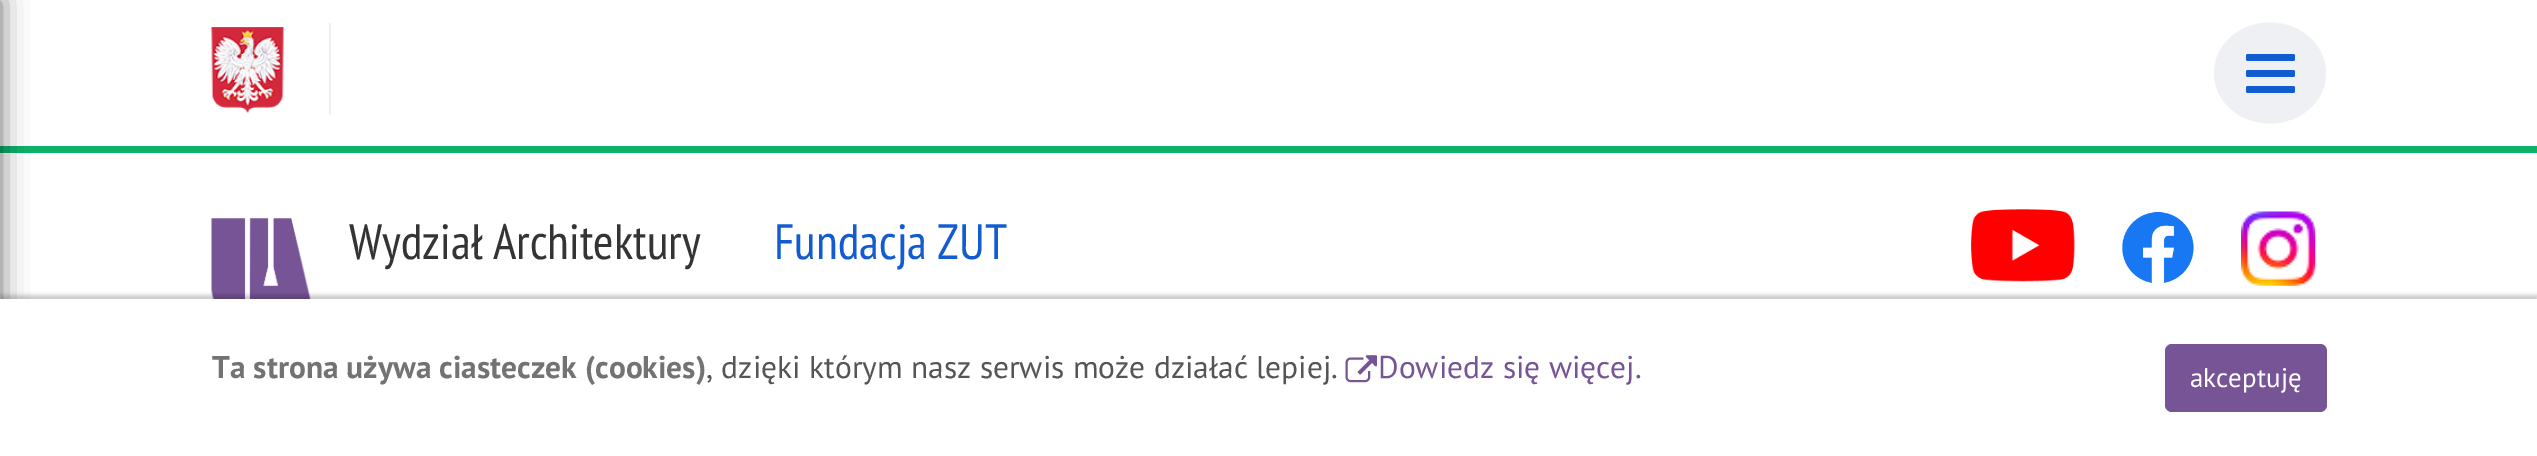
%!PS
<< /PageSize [2537 456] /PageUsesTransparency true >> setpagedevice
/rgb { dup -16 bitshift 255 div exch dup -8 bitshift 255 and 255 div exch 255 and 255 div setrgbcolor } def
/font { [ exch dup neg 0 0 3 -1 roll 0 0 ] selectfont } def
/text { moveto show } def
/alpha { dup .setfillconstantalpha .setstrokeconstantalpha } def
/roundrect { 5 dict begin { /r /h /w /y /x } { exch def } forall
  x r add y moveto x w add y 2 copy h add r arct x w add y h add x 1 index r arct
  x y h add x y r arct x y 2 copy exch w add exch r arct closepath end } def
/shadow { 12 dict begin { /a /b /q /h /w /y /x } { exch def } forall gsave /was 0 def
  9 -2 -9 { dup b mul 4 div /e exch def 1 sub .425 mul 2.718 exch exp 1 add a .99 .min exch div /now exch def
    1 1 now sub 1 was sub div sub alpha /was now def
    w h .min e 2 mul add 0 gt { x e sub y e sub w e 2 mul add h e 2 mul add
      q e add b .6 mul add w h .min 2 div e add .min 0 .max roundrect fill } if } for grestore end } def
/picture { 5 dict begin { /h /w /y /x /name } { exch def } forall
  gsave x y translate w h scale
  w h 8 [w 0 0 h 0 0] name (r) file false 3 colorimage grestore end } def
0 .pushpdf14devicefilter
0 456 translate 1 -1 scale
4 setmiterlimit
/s1 { /PTSansNarrow-Regular 49.5 font 16#343434 rgb } def
/s2 { /PTSansNarrow-Regular 49.5 font 16#125BD0 rgb } def
/s3 { /PTSans-Bold 31.5 font 16#737373 rgb } def
/s4 { /PTSans-Regular 31.5 font 16#555555 rgb } def
/s5 { /PTSans-Regular 31.5 font 16#775496 rgb } def
/s6 { /PTSans-Regular 27 font 16#FFFFFF rgb } def
16#FFFFFF rgb
0 0 2537 456 rectfill
(pic1.raw) 211 27 73 86 picture
16#EEF0F3 rgb
329 23 2 92 rectfill
2270 22.5 moveto 2301 22.5 2326 45 2326 73 curveto 2326 101 2301 123.5 2270 123.5 curveto 2239 123.5 2214 101 2214 73 curveto 2214 45 2239 22.5 2270 22.5 curveto closepath fill
16#125BD0 rgb
2246 54 49 7 2 roundrect fill
2246 70 49 7 2 roundrect fill
2246 86 49 7 2 roundrect fill
16#0DB16A rgb
0 146 2537 7 rectfill
16#000000 rgb
-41 0 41 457 0 13.5 0.6 shadow
(pic2.raw) 211 218 100 81 picture
s1
(Wydział Architektury) 349 259 text
s2
(Fundacja ZUT) 774 259 text
(pic3.raw) 1971 209 104 73 picture
(pic4.raw) 2122 212 72 71 picture
(pic5.raw) 2241 211 75 75 picture
16#000000 rgb
0 295 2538 157 0 2 0.2 shadow
16#FFFFFF rgb
0 299 2537 157 rectfill
s3
(Ta strona używa ciasteczek \(cookies\)) 212 378 text
s4
(, dzięki którym nasz serwis może działać lepiej.) 706 378 text
(pic6.raw) 1345 355 32 28 picture
s5
(Dowiedz się więcej.) 1378 378 text
2165 344 162 68 7 roundrect fill
s6
(akceptuję) 2190 387 text
.poppdf14devicefilter showpage
